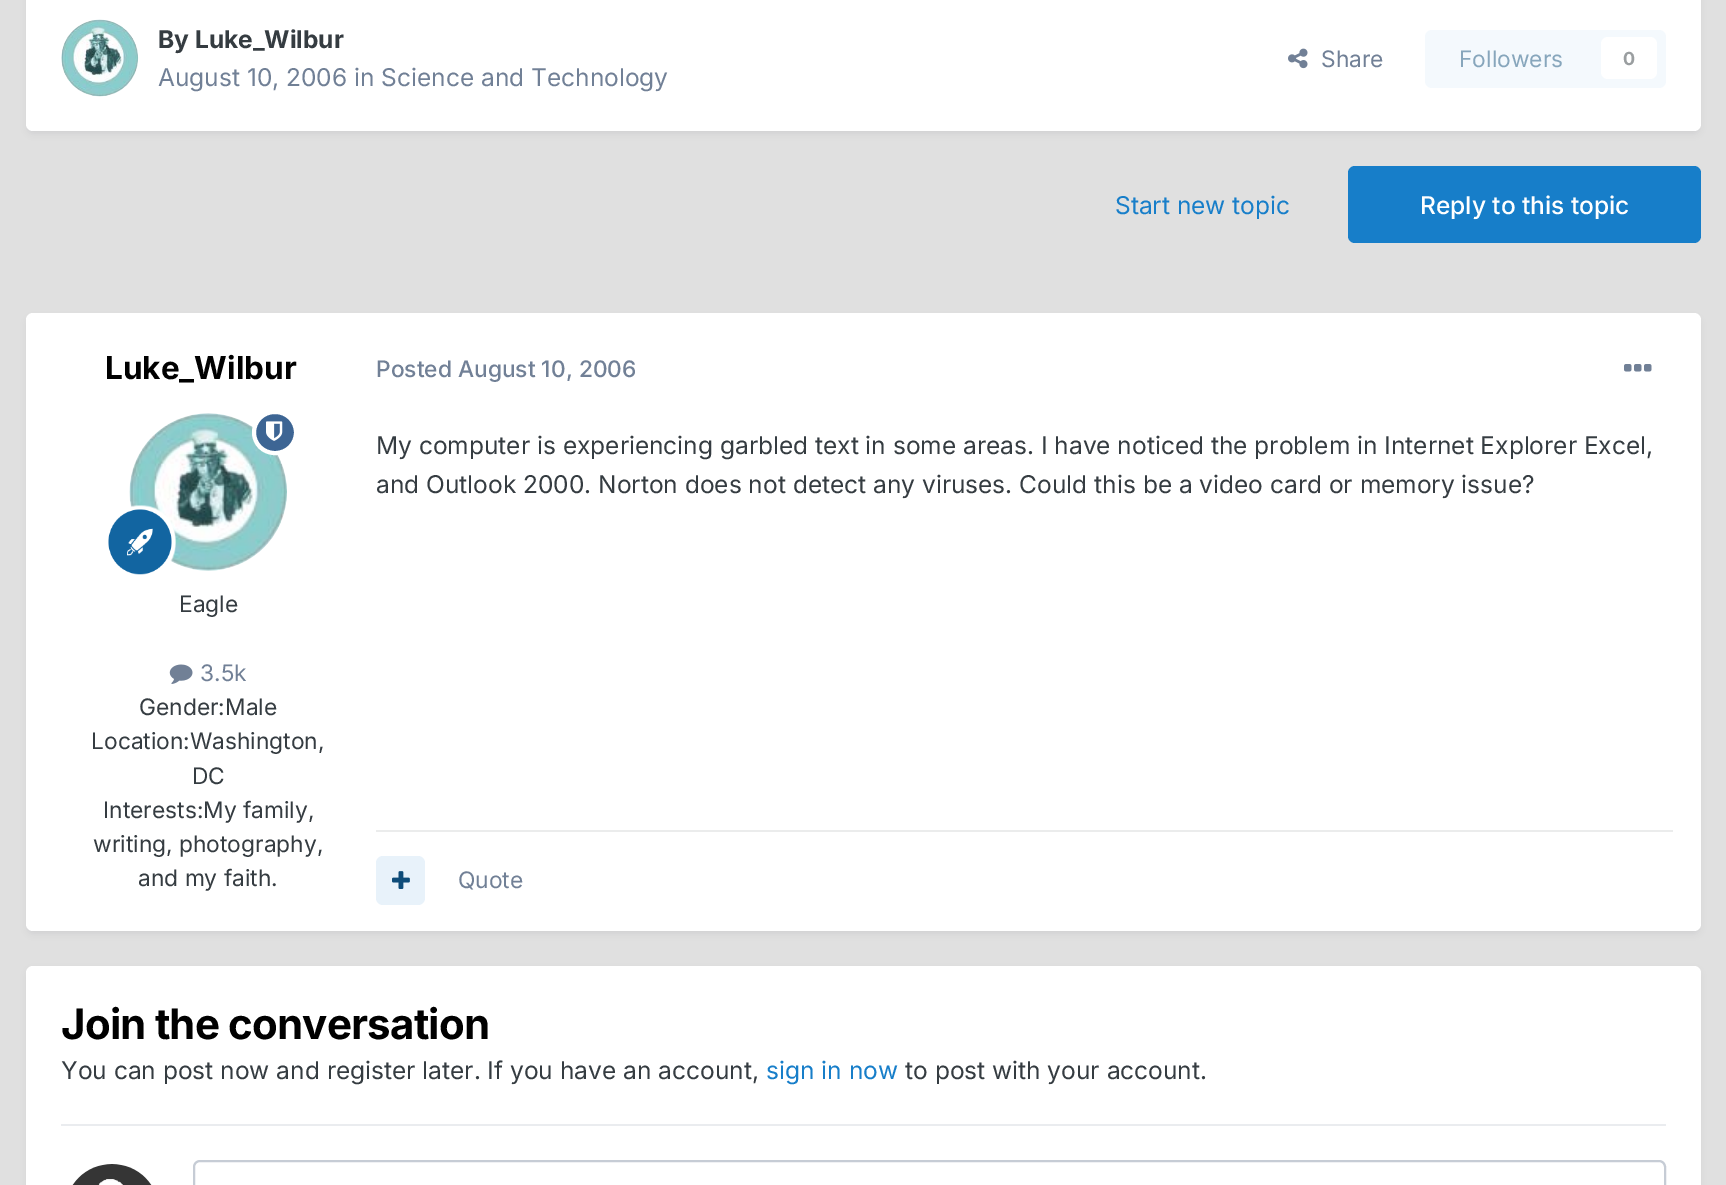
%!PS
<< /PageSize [1726 1185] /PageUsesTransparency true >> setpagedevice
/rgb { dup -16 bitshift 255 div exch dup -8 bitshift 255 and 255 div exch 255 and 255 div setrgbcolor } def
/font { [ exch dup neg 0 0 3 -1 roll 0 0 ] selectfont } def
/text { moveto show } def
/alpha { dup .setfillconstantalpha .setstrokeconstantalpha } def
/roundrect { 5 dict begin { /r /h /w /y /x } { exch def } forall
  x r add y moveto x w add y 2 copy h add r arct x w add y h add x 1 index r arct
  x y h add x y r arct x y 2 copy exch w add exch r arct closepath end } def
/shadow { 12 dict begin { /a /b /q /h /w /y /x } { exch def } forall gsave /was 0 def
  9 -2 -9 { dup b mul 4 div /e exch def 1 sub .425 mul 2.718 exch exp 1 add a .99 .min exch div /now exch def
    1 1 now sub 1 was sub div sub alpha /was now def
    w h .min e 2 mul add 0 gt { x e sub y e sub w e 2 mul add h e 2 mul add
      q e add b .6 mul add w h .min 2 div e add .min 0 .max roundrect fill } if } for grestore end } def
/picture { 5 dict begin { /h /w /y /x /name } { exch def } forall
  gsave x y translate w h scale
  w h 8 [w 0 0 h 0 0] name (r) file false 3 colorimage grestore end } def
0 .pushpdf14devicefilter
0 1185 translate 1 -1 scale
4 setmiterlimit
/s1 { /Inter-Bold 24.5 font 16#353C41 rgb } def
/s2 { /Inter-Regular 24.5 font 16#718096 rgb } def
/s3 { /Inter-Regular 22.75 font 16#718096 rgb } def
/s4 { /Inter-Regular 22.75 font 16#87A6BC rgb } def
/s5 { /Inter-Bold 18 font 16#9A9EA0 rgb } def
/s6 { /Inter-Regular 24.5 font 16#177EC9 rgb } def
/s7 { /Inter-Medium 24.5 font 16#FFFFFF rgb } def
/s8 { /Inter-Bold 31.5 font 16#000000 rgb } def
/s9 { /Inter-Regular 22.75 font 16#353C41 rgb } def
/s10 { /Inter-Medium 22.75 font 16#718096 rgb } def
/s11 { /Inter-Regular 24.5 font 16#353C41 rgb } def
16#E0E0E0 rgb
0 0 1726 1185 rectfill
16#2D3748 rgb
28 -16 1671 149 5 3.5 0.1 shadow
16#FFFFFF rgb
26 -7 1675 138 7 roundrect fill
(pic1.raw) 61 19 78 78 picture
s1
(By Luke_Wilbur) 158 48 text
s2
(August 10, 2006 in Science and Technology) 158 86 text
(pic2.raw) 1288 48 20 21 picture
s3
(Share) 1321 67 text
16#F4F9FD rgb
1425 30 241 58 7 roundrect fill
s4
(Followers) 1459 67 text
16#FFFFFF rgb
1601 37 56 42 7 roundrect fill
s5
(0) 1623 65 text
s6
(Start new topic) 1115 214 text
1348 166 353 77 7 roundrect fill
s7
(Reply to this topic) 1420 214 text
16#2D3748 rgb
28 319 1671 614 5 3.5 0.1 shadow
16#FFFFFF rgb
26 313 1675 618 7 roundrect fill
s8
(Luke_Wilbur) 105 379 text
(pic4.raw) 129 413 158 158 picture
16#3D6594 rgb
254 412 42 41 20.5 roundrect gsave fill grestore
16#FFFFFF rgb
4 setlinewidth
stroke
(pic3.raw) 266 421 17 20 picture
(pic5.raw) 108 505 68 70 picture
s9
(Eagle) 179 612 text
(pic6.raw) 169 664 24 20 picture
s3
(3.5k) 200 681 text
s9
(Gender:Male) 139 715 text
(Location:Washington,) 91 749 text
(DC) 192 784 text
(Interests:My family,) 103 818 text
(writing, photography,) 93 852 text
(and my faith.) 138 886 text
s10
(Posted August 10, 2006) 376 377 text
(pic7.raw) 1624 364 28 8 picture
s11
(My computer is experiencing garbled text in some areas. I have noticed the problem in Internet Explorer Excel,) 376 454 text
(and Outlook 2000. Norton does not detect any viruses. Could this be a video card or memory issue?) 376 493 text
16#EBECEC rgb
376 830 1297 2 rectfill
16#E8F2FA rgb
376 856 49 49 7 roundrect fill
(pic8.raw) 392 871 18 18 picture
s3
(Quote) 458 888 text
16#2D3748 rgb
28 971 1671 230 5 3.5 0.1 shadow
16#FFFFFF rgb
26 966 1675 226 7 roundrect fill
16#EAECEF rgb
61 1124 1605 2 rectfill
/Inter-Bold 42 font
16#000000 rgb
61 1039 moveto -0.8 0 (Join the conversation) ashow
s11
(You can post now and register later. If you have an account,) 61 1079 text
s6
(sign in now) 766 1079 text
s11
(to post with your account.) 905 1079 text
(pic9.raw) 72 1164 80 21 picture
16#C6CCD5 rgb
2 setlinewidth
194 1161 1471 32 6 roundrect stroke
.poppdf14devicefilter showpage
